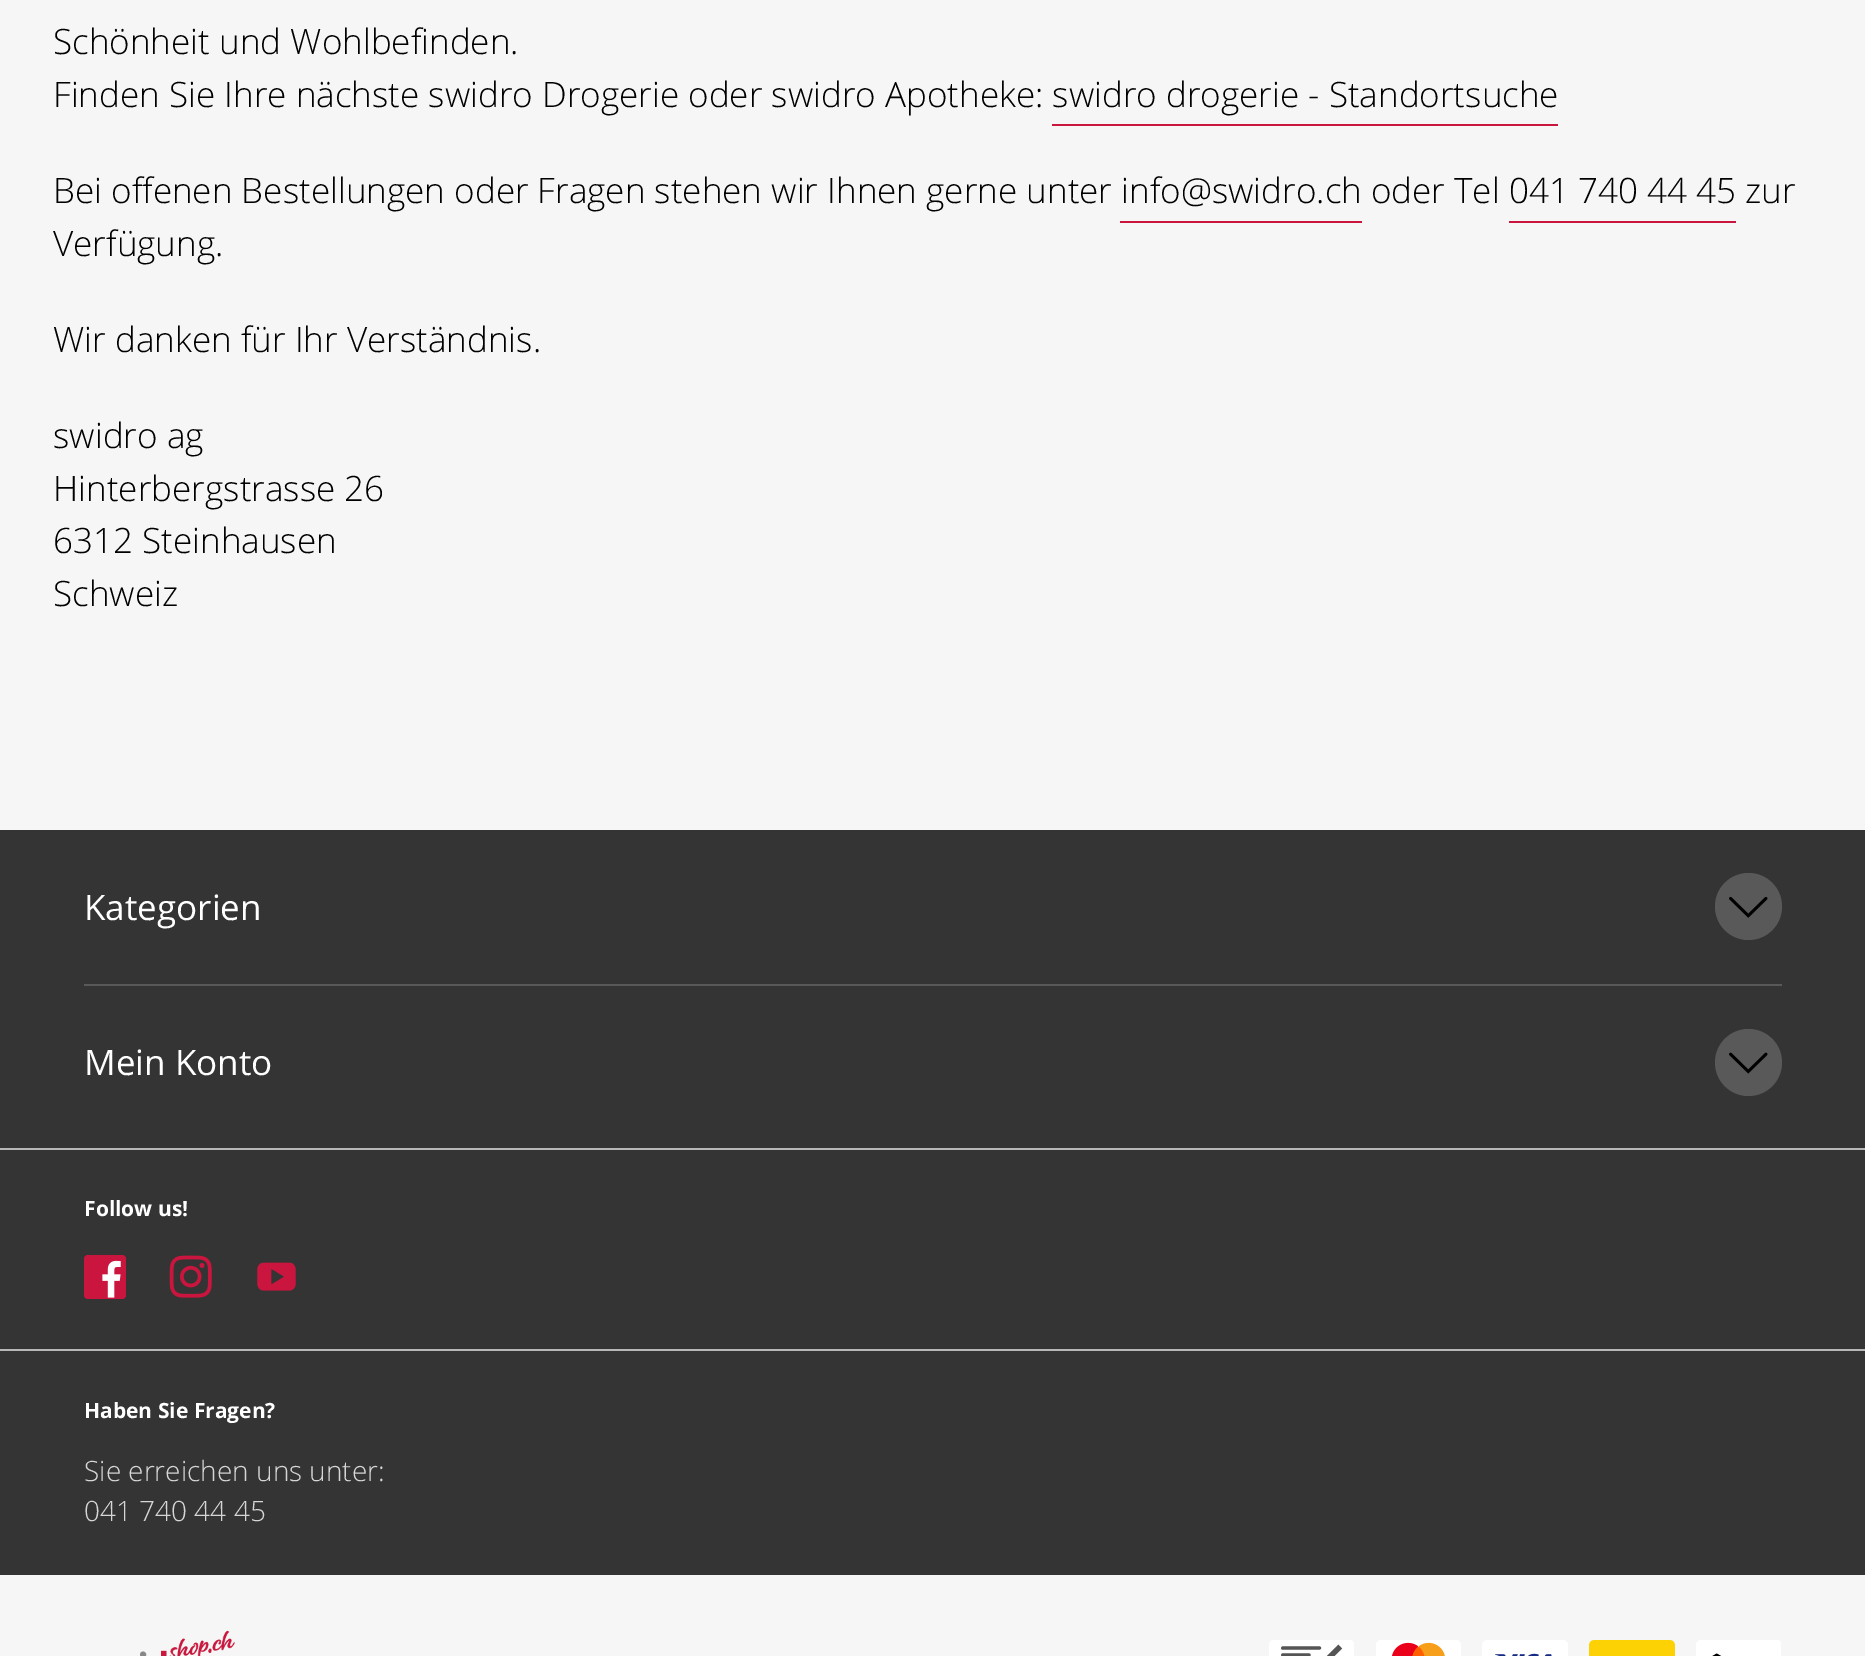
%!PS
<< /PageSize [1865 1656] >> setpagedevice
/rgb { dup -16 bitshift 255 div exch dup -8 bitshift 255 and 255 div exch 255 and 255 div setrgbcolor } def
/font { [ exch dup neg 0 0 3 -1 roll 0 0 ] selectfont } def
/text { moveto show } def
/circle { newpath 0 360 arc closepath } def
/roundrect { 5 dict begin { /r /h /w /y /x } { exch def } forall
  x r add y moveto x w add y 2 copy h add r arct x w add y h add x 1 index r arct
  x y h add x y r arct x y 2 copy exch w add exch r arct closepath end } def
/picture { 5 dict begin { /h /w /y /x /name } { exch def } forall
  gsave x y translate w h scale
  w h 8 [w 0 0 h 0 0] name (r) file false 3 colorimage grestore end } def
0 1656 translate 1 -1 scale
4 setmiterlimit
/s1 { /OpenSans-Light 35 font 16#000000 rgb } def
/s2 { /OpenSans-Regular 35 font 16#FFFFFF rgb } def
/s3 { /OpenSans-Bold 21 font 16#FFFFFF rgb } def
/s4 { /OpenSans-Light 28 font 16#D6D6D6 rgb } def
16#F6F6F6 rgb
0 0 1865 1656 rectfill
s1
(Schönheit und Wohlbefinden.) 53 54 text
(Finden Sie Ihre nächste swidro Drogerie oder swidro Apotheke: swidro drogerie - Standortsuche) 53 107 text
16#CA153E rgb
1052 124 506 2 rectfill
s1
(Bei offenen Bestellungen oder Fragen stehen wir Ihnen gerne unter info@swidro.ch oder Tel 041 740 44 45 zur) 53 203 text
16#CA153E rgb
1120 221 242 2 rectfill
1509 221 227 2 rectfill
s1
(Verfügung.) 53 256 text
(Wir danken für Ihr Verständnis.) 53 352 text
(swidro ag) 53 448 text
(Hinterbergstrasse 26) 53 501 text
(6312 Steinhausen) 53 553 text
(Schweiz) 53 606 text
16#343434 rgb
0 830 1865 745 rectfill
16#595959 rgb
84 984 1698 2 rectfill
s2
(Kategorien) 84 920 text
16#595959 rgb
1748.5 906.5 33.5 circle fill
(pic1.raw) 1729 896 39 22 picture
s2
(Mein Konto) 84 1075 text
16#595959 rgb
1748.5 1062.5 33.5 circle fill
(pic2.raw) 1729 1052 39 22 picture
16#B7B7B7 rgb
0 1148 1865 2 rectfill
0 1349 1865 2 rectfill
s3
(Follow us!) 84 1216 text
16#CA153E rgb
84 1255 42 44 4 roundrect fill
(pic3.raw) 169 1255 43 43 picture
(pic4.raw) 102 1260 19 38 picture
(pic5.raw) 257 1262 39 29 picture
s3
(Haben Sie Fragen?) 84 1418 text
s4
(Sie erreichen uns unter:) 84 1481 text
(041 740 44 45) 84 1521 text
(pic6.raw) 140 1630 95 26 picture
(pic7.raw) 1269 1640 85 16 picture
(pic8.raw) 1376 1640 85 16 picture
(pic9.raw) 1482 1640 86 16 picture
(pic10.raw) 1589 1640 86 16 picture
(pic11.raw) 1696 1640 85 16 picture
showpage
